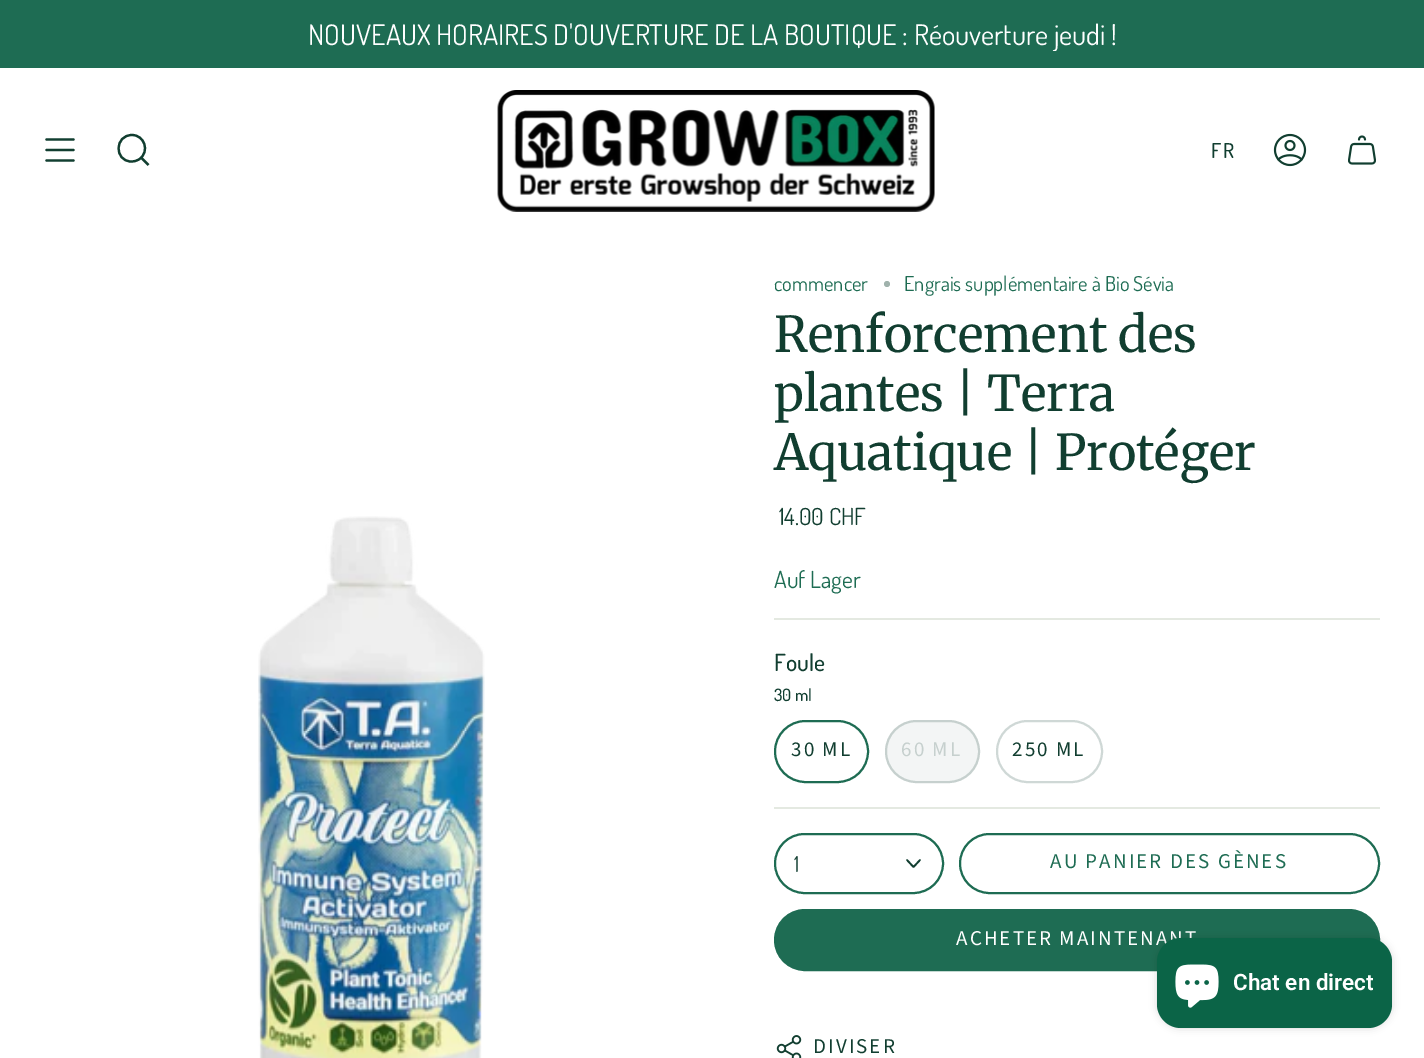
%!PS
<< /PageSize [1424 1058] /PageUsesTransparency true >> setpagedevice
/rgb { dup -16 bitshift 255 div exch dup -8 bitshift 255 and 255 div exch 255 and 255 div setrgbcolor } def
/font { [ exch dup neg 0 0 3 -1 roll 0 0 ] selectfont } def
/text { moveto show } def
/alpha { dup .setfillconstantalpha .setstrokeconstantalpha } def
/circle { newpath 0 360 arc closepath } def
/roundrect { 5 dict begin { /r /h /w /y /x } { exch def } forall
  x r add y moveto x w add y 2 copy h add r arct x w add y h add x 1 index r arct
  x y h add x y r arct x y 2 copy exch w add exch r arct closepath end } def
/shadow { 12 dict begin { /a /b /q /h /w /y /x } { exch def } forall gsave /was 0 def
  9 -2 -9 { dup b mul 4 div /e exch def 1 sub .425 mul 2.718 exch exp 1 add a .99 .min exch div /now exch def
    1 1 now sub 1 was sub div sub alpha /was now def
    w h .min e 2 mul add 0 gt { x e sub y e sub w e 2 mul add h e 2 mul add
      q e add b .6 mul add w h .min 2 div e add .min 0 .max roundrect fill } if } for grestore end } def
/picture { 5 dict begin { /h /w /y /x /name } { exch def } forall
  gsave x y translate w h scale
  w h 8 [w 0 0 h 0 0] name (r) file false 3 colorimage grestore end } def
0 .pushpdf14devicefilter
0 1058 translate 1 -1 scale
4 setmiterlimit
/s1 { /Dosis-Regular 28.35 font 16#FFFFFF rgb } def
/s2 { /Dosis-Regular 20.5 font 16#1E6C53 rgb } def
/s3 { /Merriweather-Regular 49.25 font 16#113E30 rgb } def
/s4 { /Dosis-Regular 23.5 font 16#113E30 rgb } def
/s5 { /Dosis-Regular 23.5 font 16#1E6C53 rgb } def
/s6 { /Dosis-Medium 23.5 font 16#113E30 rgb } def
/s7 { /Dosis-Medium 17 font 16#113E30 rgb } def
/s8 { /Dosis-Regular 22 font 16#113E30 rgb } def
/s9 { /Roboto-SemiBold 22.5 font 16#FFFFFF rgb } def
16#FFFFFF rgb
0 0 1424 1058 rectfill
16#1E6C53 rgb
0 0 1424 68 rectfill
gsave
0 17 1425 34 rectclip
s1
(NOUVEAUX HORAIRES D'OUVERTURE DE LA BOUTIQUE : Réouverture jeudi !) 308 45 text
grestore
16#113E30 rgb
2.2 setlinewidth
1 setlinecap
1 setlinejoin
46.5 139.5 moveto 73.5 139.5 lineto 46.5 150 moveto 73.5 150 lineto 46.5 160.5 moveto 73.5 160.5 lineto stroke
0 setlinecap
0 setlinejoin
132 135 moveto 144.5 135 150 151.5 139.5 159 curveto 137 161 134 161.5 131 161.5 curveto 114 161 114.5 135 132 135 curveto closepath 141 157.5 moveto 148.5 165 lineto stroke
(pic1.raw) 497 90 438 122 picture
/Dosis-Medium 20.5 font
1211 158 moveto 2 0 (FR) ashow
(pic2.raw) 1273 133 34 34 picture
(pic3.raw) 1348 135 28 30 picture
(pic4.raw) 258 516 227 542 picture
s2
(commencer) 774 291 text
16#A0B2AC rgb
887 284 3 circle fill
s2
(Engrais supplémentaire à Bio Sévia) 904 291 text
s3
(Renforcement des) 774 352 text
(plantes | Terra) 774 411 text
(Aquatique | Protéger) 774 470 text
s4
(14.00 CHF) 779 525 text
s5
(Auf Lager) 774 588 text
16#E4E9E1 rgb
774 618 606 2 rectfill
774 807 606 2 rectfill
s6
(Foule) 774 671 text
s7
(30 ml) 774 701 text
16#1E6C53 rgb
2 setlinewidth
775 721 93 61 30.5 roundrect stroke
/SourceSansPro-Regular 21 font
16#113E30 rgb
791 756 moveto 2.1 0 (30 ML) ashow
16#F3F5F5 rgb
885 720 95 63 31.5 roundrect fill
0.2 alpha
16#113E30 rgb
886 721 93 61 30.5 roundrect stroke
1 alpha
16#C6D0CE rgb
901 756 moveto 2.1 0 (60 ML) ashow
16#CFD8D6 rgb
997 721 105 61 30.5 roundrect stroke
16#113E30 rgb
1012 756 moveto 2.1 0 (250 ML) ashow
16#1E6C53 rgb
775 834 168 59 29.5 roundrect stroke
s8
(1) 794 872 text
1.7 setlinewidth
1 setlinecap
1 setlinejoin
907 860 moveto 913.5 867 lineto 920 860 lineto stroke
16#1E6C53 rgb
2 setlinewidth
0 setlinecap
0 setlinejoin
960 834 419 59 29.5 roundrect stroke
/SourceSansPro-Regular 21 font
1050 868 moveto 2.1 0 (AU PANIER DES GÈNES) ashow
775 910 604 60 30 roundrect gsave fill grestore
stroke
16#FFFFFF rgb
956 945 moveto 2.1 0 (ACHETER MAINTENANT) ashow
(pic5.raw) 776 1035 26 23 picture
16#113E30 rgb
813 1053 moveto 2.1 0 (DIVISER) ashow
16#000000 rgb
1157 938 235 90 24 4 0.15 shadow
16#0B6447 rgb
1157 938 235 90 24 roundrect fill
(pic6.raw) 1175 964 44 44 picture
s9
(Chat en direct) 1233 990 text
.poppdf14devicefilter showpage
